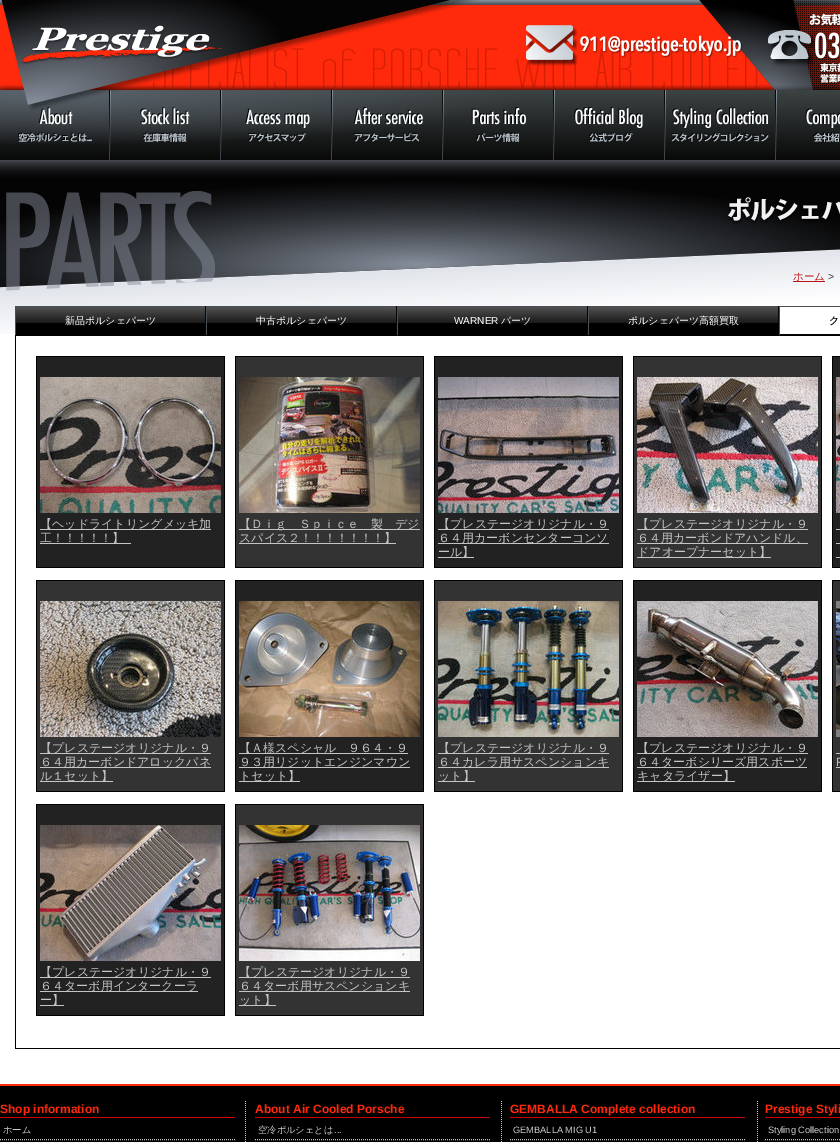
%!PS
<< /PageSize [840 1142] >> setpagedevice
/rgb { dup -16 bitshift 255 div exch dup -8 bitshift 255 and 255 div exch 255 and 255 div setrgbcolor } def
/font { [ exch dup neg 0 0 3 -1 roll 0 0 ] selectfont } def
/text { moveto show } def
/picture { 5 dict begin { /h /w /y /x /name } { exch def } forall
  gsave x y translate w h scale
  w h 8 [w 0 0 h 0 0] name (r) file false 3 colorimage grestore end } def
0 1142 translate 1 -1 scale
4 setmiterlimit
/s1 { /WenQuanYiZenHei-Medium 10.5 font 16#B81413 rgb } def
/s2 { /LiberationSans-Regular 10.5 font 16#333333 rgb } def
/s3 { /WenQuanYiZenHei-Medium 10 font 16#FFFFFF rgb } def
/s4 { /LiberationSans-Regular 10 font 16#FFFFFF rgb } def
/s5 { /WenQuanYiZenHei-Bold 10 font 16#040404 rgb } def
/s6 { /WenQuanYiZenHei-Medium 12 font 16#C5C5C5 rgb } def
/s7 { /LiberationSans-Regular 12 font 16#C5C5C5 rgb } def
/s8 { /LiberationSans-Bold 12 font 16#FF2A0C rgb } def
/s9 { /WenQuanYiZenHei-Medium 9.25 font 16#CCCCCC rgb } def
/s10 { /LiberationSans-Regular 9.25 font 16#CCCCCC rgb } def
16#FFFFFF rgb
0 0 840 1142 rectfill
(pic1.raw) 0 0 840 334 picture
(pic2.raw) 0 0 840 90 picture
(pic3.raw) 1 0 481 90 picture
(pic4.raw) 526 25 217 41 picture
(pic5.raw) 0 90 110 70 picture
(pic6.raw) 110 90 111 70 picture
(pic7.raw) 221 90 111 70 picture
(pic8.raw) 332 90 111 70 picture
(pic9.raw) 443 90 111 70 picture
(pic10.raw) 554 90 111 70 picture
(pic11.raw) 665 90 111 70 picture
(pic12.raw) 776 90 64 62 picture
(pic13.raw) 6 191 834 100 picture
16#B81413 rgb
793 281 32 1 rectfill
s1
(ホーム) 793 280 text
s2
(>) 828 280 text
16#000000 rgb
16 323 189 12 rectfill
(pic14.raw) 16 307 189 16 picture
16#485055 rgb
15 306 825 1 rectfill
16#050505 rgb
205 306 1 29 rectfill
16#485055 rgb
15 306 1 29 rectfill
s3
(新品ポルシェパーツ) 65 324 text
16#000000 rgb
207 323 189 12 rectfill
(pic14.raw) 207 307 189 16 picture
16#050505 rgb
396 306 1 29 rectfill
16#485055 rgb
206 306 1 29 rectfill
s3
(中古ポルシェパーツ) 256 324 text
16#000000 rgb
398 323 189 12 rectfill
(pic14.raw) 398 307 189 16 picture
16#050505 rgb
587 306 1 29 rectfill
16#485055 rgb
397 306 1 29 rectfill
s4
(WARNER) 454 324 text
s3
(パーツ) 501 324 text
16#000000 rgb
589 323 189 12 rectfill
(pic14.raw) 589 307 189 16 picture
16#050505 rgb
778 306 1 29 rectfill
16#485055 rgb
588 306 1 29 rectfill
s3
(ポルシェパーツ高額買取) 628 324 text
16#050505 rgb
779 334 61 1 rectfill
16#485055 rgb
779 306 1 29 rectfill
s5
(ク) 829 324 text
16#000000 rgb
15 335 825 1 rectfill
15 1048 825 1 rectfill
15 336 1 713 rectfill
36 356 189 212 rectfill
16#222222 rgb
37 357 187 210 rectfill
(pic15.raw) 40 377 181 136 picture
16#C5C5C5 rgb
40 529 171 1 rectfill
s6
(【ヘッドライトリングメッキ加) 40 528 text
40 543 91 1 rectfill
(工！！！！！】) 40 542 text
16#000000 rgb
235 356 189 212 rectfill
16#333333 rgb
236 357 187 210 rectfill
(pic16.raw) 239 377 181 136 picture
16#C5C5C5 rgb
239 529 181 1 rectfill
(【Ｄｉｇ　Ｓｐｉｃｅ　製　デジ) 239 528 text
239 543 157 1 rectfill
(スパイス２！！！！！！！】) 239 542 text
16#000000 rgb
434 356 189 212 rectfill
16#222222 rgb
435 357 187 210 rectfill
(pic17.raw) 438 377 181 136 picture
16#C5C5C5 rgb
438 529 171 1 rectfill
(【プレステージオリジナル・９) 438 528 text
438 543 171 1 rectfill
(６４用カーボンセンターコンソ) 438 542 text
438 557 36 1 rectfill
(ール】) 438 556 text
16#000000 rgb
633 356 189 212 rectfill
16#333333 rgb
634 357 187 210 rectfill
(pic18.raw) 637 377 181 136 picture
16#C5C5C5 rgb
637 529 171 1 rectfill
(【プレステージオリジナル・９) 637 528 text
637 543 171 1 rectfill
(６４用カーボンドアハンドル、) 637 542 text
637 557 134 1 rectfill
(ドアオープナーセット】) 637 556 text
16#000000 rgb
832 356 8 212 rectfill
16#222222 rgb
833 357 7 210 rectfill
(pic19.raw) 836 377 4 136 picture
16#C5C5C5 rgb
836 529 4 1 rectfill
836 543 4 1 rectfill
836 557 4 1 rectfill
16#000000 rgb
36 580 189 212 rectfill
16#333333 rgb
37 581 187 210 rectfill
(pic20.raw) 40 601 181 136 picture
16#C5C5C5 rgb
40 753 171 1 rectfill
(【プレステージオリジナル・９) 40 752 text
40 767 171 1 rectfill
(６４用カーボンドアロックパネ) 40 766 text
40 781 73 1 rectfill
(ル１セット】) 40 780 text
16#000000 rgb
235 580 189 212 rectfill
16#222222 rgb
236 581 187 210 rectfill
(pic21.raw) 239 601 181 136 picture
16#C5C5C5 rgb
239 753 169 1 rectfill
(【Ａ様スペシャル　９６４・９) 239 752 text
239 767 171 1 rectfill
(９３用リジットエンジンマウン) 239 766 text
239 781 61 1 rectfill
(トセット】) 239 780 text
16#000000 rgb
434 580 189 212 rectfill
16#333333 rgb
435 581 187 210 rectfill
(pic22.raw) 438 601 181 136 picture
16#C5C5C5 rgb
438 753 171 1 rectfill
(【プレステージオリジナル・９) 438 752 text
438 767 171 1 rectfill
(６４カレラ用サスペンションキ) 438 766 text
438 781 37 1 rectfill
(ット】) 438 780 text
16#000000 rgb
633 580 189 212 rectfill
16#222222 rgb
634 581 187 210 rectfill
(pic23.raw) 637 601 181 136 picture
16#C5C5C5 rgb
637 753 171 1 rectfill
(【プレステージオリジナル・９) 637 752 text
637 767 170 1 rectfill
(６４ターボシリーズ用スポーツ) 637 766 text
637 781 98 1 rectfill
(キャタライザー】) 637 780 text
16#000000 rgb
832 580 8 212 rectfill
16#333333 rgb
833 581 7 210 rectfill
(pic24.raw) 836 601 4 136 picture
s7
(F) 836 766 text
836 753 4 1 rectfill
836 767 4 1 rectfill
16#000000 rgb
36 804 189 212 rectfill
16#222222 rgb
37 805 187 210 rectfill
(pic25.raw) 40 825 181 136 picture
16#C5C5C5 rgb
40 977 171 1 rectfill
s6
(【プレステージオリジナル・９) 40 976 text
40 991 158 1 rectfill
(６４ターボ用インタークーラ) 40 990 text
40 1005 24 1 rectfill
(ー】) 40 1004 text
16#000000 rgb
235 804 189 212 rectfill
16#333333 rgb
236 805 187 210 rectfill
(pic26.raw) 239 825 181 136 picture
16#C5C5C5 rgb
239 977 171 1 rectfill
(【プレステージオリジナル・９) 239 976 text
239 991 171 1 rectfill
(６４ターボ用サスペンションキ) 239 990 text
239 1005 37 1 rectfill
(ット】) 239 1004 text
16#000000 rgb
0 1086 840 56 rectfill
16#FF2A0C rgb
0 1084 840 2 rectfill
(pic27.raw) 245 1101 513 41 picture
16#CC0000 rgb
0 1117 235 1 rectfill
s8
(Shop information) 0 1113 text
16#CCCCCC rgb
[1 1] 0 setdash
0 1139.5 moveto 235 1139.5 lineto stroke
s9
(ホーム) 3 1133 text
16#CC0000 rgb
255 1117 235 1 rectfill
s8
(About Air Cooled Porsche) 255 1113 text
16#CCCCCC rgb
255 1139.5 moveto 490 1139.5 lineto stroke
s9
(空冷ポルシェとは) 258 1133 text
s10
(...) 334 1133 text
16#CC0000 rgb
510 1117 235 1 rectfill
s8
(GEMBALLA Complete collection) 510 1113 text
16#CCCCCC rgb
510 1139.5 moveto 745 1139.5 lineto stroke
s10
(GEMBALLA MIG U1) 513 1133 text
16#CC0000 rgb
765 1117 75 1 rectfill
s8
(Prestige Styli) 765 1113 text
16#CCCCCC rgb
765 1139.5 moveto 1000 1139.5 lineto stroke
s10
(Styling Collection) 768 1133 text
showpage
